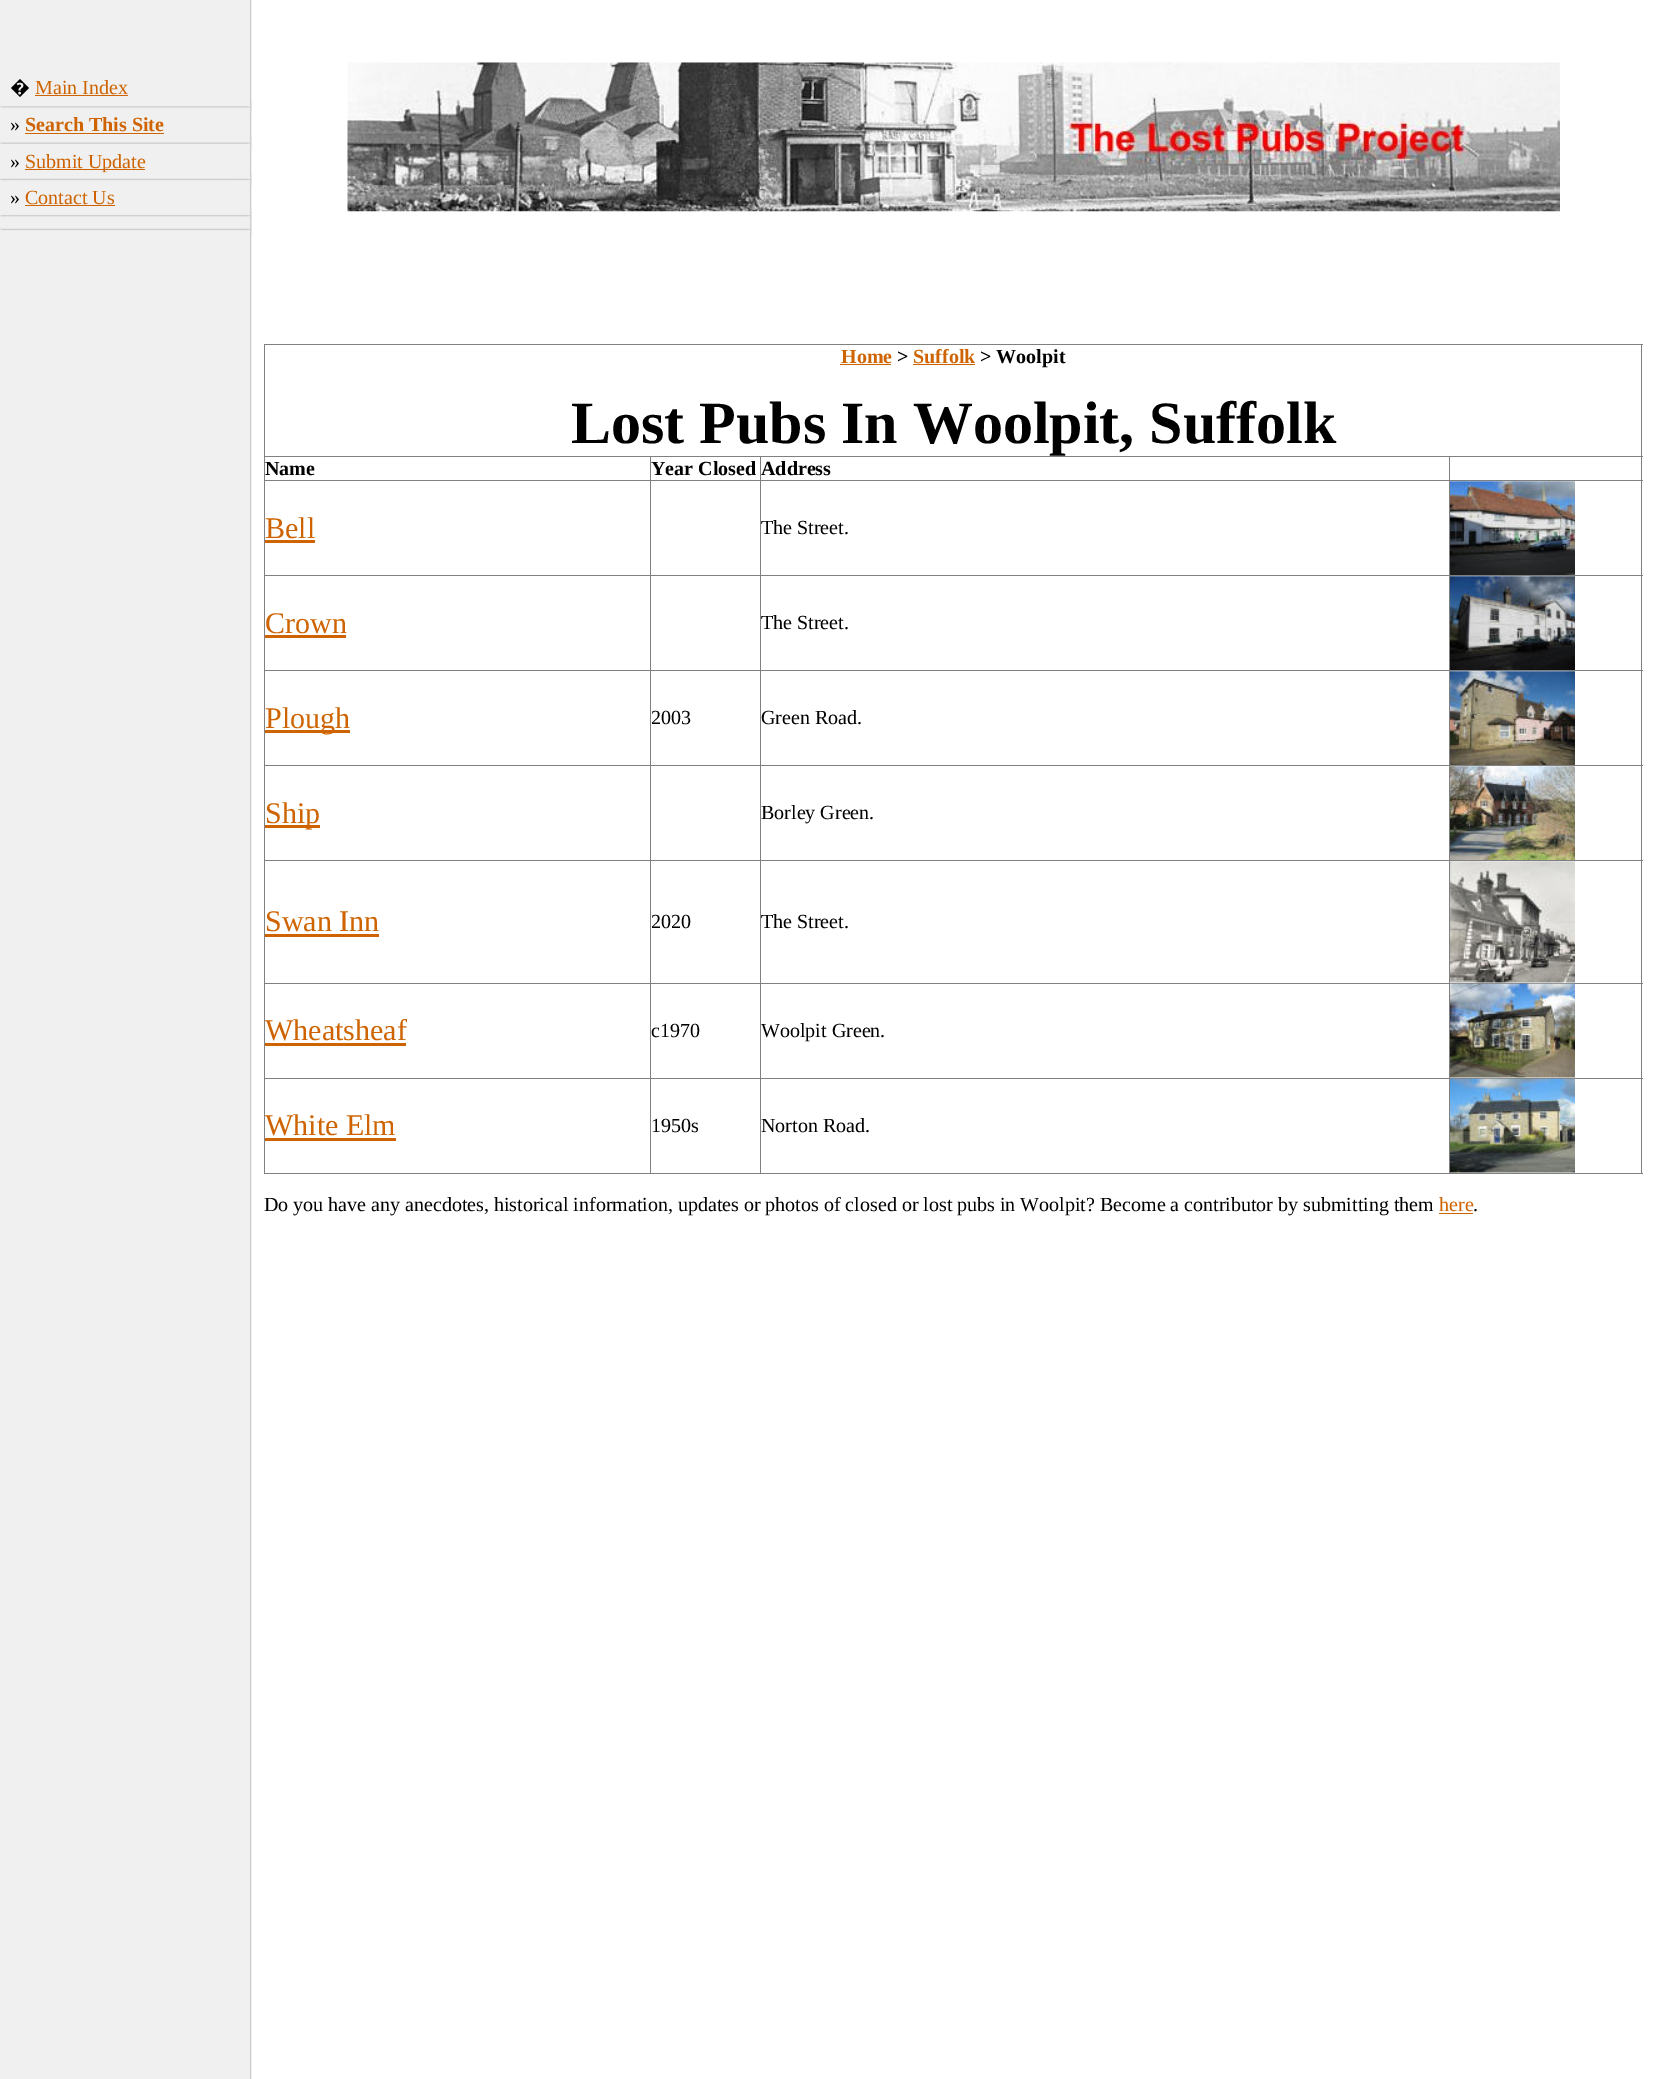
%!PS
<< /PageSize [1654 2079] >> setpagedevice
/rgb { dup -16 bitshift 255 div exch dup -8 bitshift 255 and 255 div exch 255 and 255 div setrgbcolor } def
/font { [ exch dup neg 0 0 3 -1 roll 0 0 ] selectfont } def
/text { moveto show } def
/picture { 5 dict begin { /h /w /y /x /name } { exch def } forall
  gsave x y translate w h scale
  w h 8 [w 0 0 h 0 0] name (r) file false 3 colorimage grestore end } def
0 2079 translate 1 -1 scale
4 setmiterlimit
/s1 { /NotoSans-Regular 20 font 16#000000 rgb } def
/s2 { /LiberationSerif-Regular 20 font 16#CE6300 rgb } def
/s3 { /LiberationSerif-Regular 20 font 16#000000 rgb } def
/s4 { /LiberationSerif-Bold 20 font 16#CE6300 rgb } def
/s5 { /LiberationSerif-Bold 20 font 16#000000 rgb } def
/s6 { /LiberationSerif-Bold 60 font 16#000000 rgb } def
/s7 { /LiberationSerif-Regular 30 font 16#CE6300 rgb } def
16#FFFFFF rgb
0 0 1654 2079 rectfill
(pic1.raw) 0 0 252 2079 picture
s1
(�) 10 94 text
s2
(Main Index) 35 94 text
35 95 93 1 rectfill
(pic2.raw) 0 100 252 14 picture
s3
(») 10 131 text
s4
(Search This Site) 25 131 text
25 133 139 1 rectfill
(pic3.raw) 0 136 252 14 picture
s3
(») 10 168 text
16#CE6300 rgb
25 169 120 1 rectfill
(Submit Update) 25 168 text
(pic4.raw) 0 172 252 14 picture
s3
(») 10 204 text
s2
(Contact Us) 25 204 text
25 205 90 1 rectfill
(pic5.raw) 0 209 252 14 picture
(pic6.raw) 0 223 252 13 picture
(pic7.raw) 347 62 1213 150 picture
16#808080 rgb
264 344 1379 1 rectfill
1641 344 1 830 rectfill
264 1173 1379 1 rectfill
264 344 1 830 rectfill
s4
(Home) 841 363 text
840 364 51 1 rectfill
s5
(>) 897 363 text
s4
(Suffolk) 913 363 text
913 364 62 1 rectfill
s5
(> Woolpit) 980 363 text
s6
(Lost Pubs In Woolpit, Suffolk) 571 443 text
16#808080 rgb
1449 456 194 1 rectfill
1449 480 194 1 rectfill
1449 575 194 1 rectfill
1449 670 194 1 rectfill
1449 765 194 1 rectfill
1449 860 194 1 rectfill
1449 983 194 1 rectfill
1449 1078 194 1 rectfill
1449 1078 1 96 rectfill
760 1078 690 1 rectfill
1449 983 1 96 rectfill
760 983 690 1 rectfill
1449 860 1 124 rectfill
760 860 690 1 rectfill
1449 765 1 96 rectfill
760 765 690 1 rectfill
1449 670 1 96 rectfill
760 670 690 1 rectfill
1449 575 1 96 rectfill
760 575 690 1 rectfill
1449 480 1 96 rectfill
760 480 690 1 rectfill
1449 456 1 25 rectfill
760 456 690 1 rectfill
760 1078 1 96 rectfill
650 1078 111 1 rectfill
760 983 1 96 rectfill
650 983 111 1 rectfill
760 860 1 124 rectfill
650 860 111 1 rectfill
760 765 1 96 rectfill
650 765 111 1 rectfill
760 670 1 96 rectfill
650 670 111 1 rectfill
760 575 1 96 rectfill
650 575 111 1 rectfill
760 480 1 96 rectfill
650 480 111 1 rectfill
760 456 1 25 rectfill
650 456 111 1 rectfill
650 1078 1 96 rectfill
264 1078 387 1 rectfill
650 983 1 96 rectfill
264 983 387 1 rectfill
650 860 1 124 rectfill
264 860 387 1 rectfill
650 765 1 96 rectfill
264 765 387 1 rectfill
650 670 1 96 rectfill
264 670 387 1 rectfill
650 575 1 96 rectfill
264 575 387 1 rectfill
650 480 1 96 rectfill
264 480 387 1 rectfill
650 456 1 25 rectfill
264 456 387 1 rectfill
s5
(Name) 265 475 text
(Year Closed Address) 651 475 text
s7
(Bell) 265 538 text
265 540 50 3 rectfill
s3
(The Street.) 761 534 text
(pic8.raw) 1450 481 125 94 picture
s7
(Crown) 265 633 text
265 635 81 3 rectfill
s3
(The Street.) 761 629 text
(pic9.raw) 1450 576 125 94 picture
16#CE6300 rgb
265 730 85 3 rectfill
s7
(Plough) 265 728 text
s3
(2003) 651 724 text
(Green Road.) 761 724 text
(pic10.raw) 1450 671 125 94 picture
16#CE6300 rgb
265 825 55 3 rectfill
s7
(Ship) 265 823 text
s3
(Borley Green.) 761 819 text
(pic11.raw) 1450 766 125 94 picture
s7
(Swan Inn) 265 931 text
265 934 114 3 rectfill
s3
(2020) 651 928 text
(The Street.) 761 928 text
(pic12.raw) 1450 861 125 122 picture
s7
(Wheatsheaf) 265 1040 text
265 1043 141 3 rectfill
s3
(c1970) 651 1037 text
(Woolpit Green.) 761 1037 text
(pic13.raw) 1450 983 125 95 picture
s7
(White Elm) 265 1135 text
265 1138 131 3 rectfill
s3
(1950s) 651 1132 text
(Norton Road.) 761 1132 text
(pic14.raw) 1450 1078 125 95 picture
(Do you have any anecdotes, historical information, updates or photos of closed or lost pubs in Woolpit? Become a contributor by submitting them) 264 1211 text
s2
(here) 1439 1211 text
s3
(.) 1473 1211 text
16#CE6300 rgb
1439 1213 34 1 rectfill
showpage
